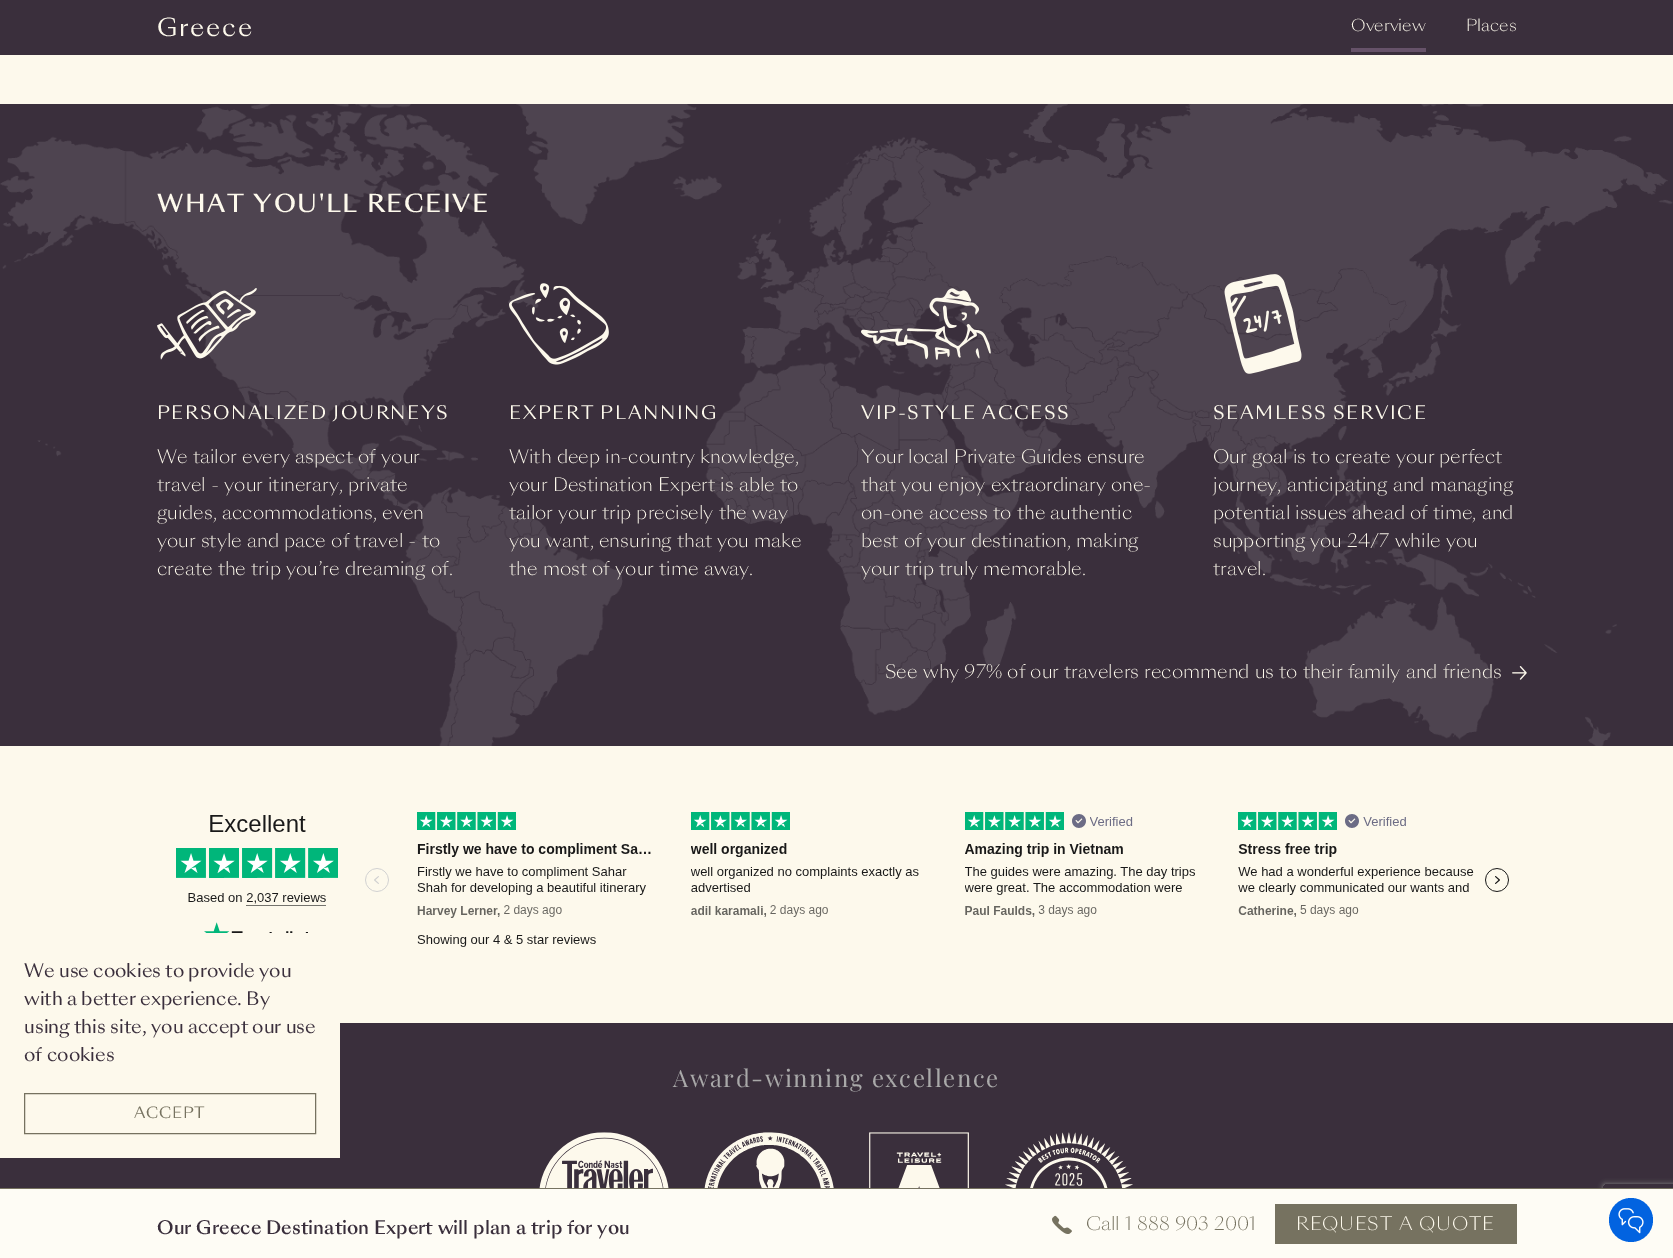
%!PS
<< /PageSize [1673 1258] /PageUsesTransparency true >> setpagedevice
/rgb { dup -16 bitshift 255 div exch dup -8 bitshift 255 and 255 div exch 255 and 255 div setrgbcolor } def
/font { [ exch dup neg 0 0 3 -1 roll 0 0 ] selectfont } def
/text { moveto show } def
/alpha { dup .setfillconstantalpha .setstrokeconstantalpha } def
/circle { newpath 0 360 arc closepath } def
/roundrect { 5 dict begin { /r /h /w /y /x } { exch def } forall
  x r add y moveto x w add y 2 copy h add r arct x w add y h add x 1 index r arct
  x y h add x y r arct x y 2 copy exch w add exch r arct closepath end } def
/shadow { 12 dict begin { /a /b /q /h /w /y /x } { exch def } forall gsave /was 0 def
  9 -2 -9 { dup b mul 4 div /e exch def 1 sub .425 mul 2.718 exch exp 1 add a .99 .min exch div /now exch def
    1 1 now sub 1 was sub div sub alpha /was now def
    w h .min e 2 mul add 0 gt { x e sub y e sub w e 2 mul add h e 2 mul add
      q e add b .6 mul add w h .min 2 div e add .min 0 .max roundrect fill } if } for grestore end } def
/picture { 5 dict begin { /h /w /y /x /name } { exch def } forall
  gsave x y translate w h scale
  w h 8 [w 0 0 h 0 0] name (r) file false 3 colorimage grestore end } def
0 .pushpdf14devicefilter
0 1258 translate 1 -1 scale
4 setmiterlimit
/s1 { /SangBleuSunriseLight-Light 16 font 16#FDF9EC rgb } def
/s2 { /SangBleuSunriseLight-Light 18 font 16#FDF9EC rgb } def
/s3 { /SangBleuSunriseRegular-Regular 18 font 16#3A2F3C rgb } def
/s4 { /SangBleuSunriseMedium-Medium 18 font 16#3A2F3C rgb } def
/s5 { /SangBleuSunriseLight-Light 18 font 16#767260 rgb } def
16#FDF9EC rgb
0 0 1673 1258 rectfill
16#3A2F3C rgb
0 0 1673 55 rectfill
/SangBleuSunriseRegular-Regular 24 font
16#FDF9EC rgb
157 36 moveto 1.6 0 (Greece) ashow
s1
(Overview) 1351 31 text
16#665269 rgb
1351 48 75 4 rectfill
s1
(Places) 1466 31 text
16#3A2F3C rgb
0 104 1673 642 rectfill
(pic1.raw) 0 104 1673 642 picture
/SangBleuSunriseMedium-Medium 24 font
16#FDF9EC rgb
157 212 moveto 1.6 0 (WHAT YOU'LL RECEIVE) ashow
(pic2.raw) 157 288 100 72 picture
/SangBleuSunriseRegular-Regular 18 font
157 419 moveto 1.6 0 (PERSONALIZED JOURNEYS) ashow
s2
(We tailor every aspect of your) 157 463 text
(travel - your itinerary, private) 157 491 text
(guides, accommodations, even) 157 519 text
(your style and pace of travel - to) 157 547 text
(create the trip you’re dreaming of.) 157 575 text
(pic3.raw) 509 283 100 82 picture
/SangBleuSunriseRegular-Regular 18 font
509 419 moveto 1.6 0 (EXPERT PLANNING) ashow
s2
(With deep in-country knowledge,) 509 463 text
(your Destination Expert is able to) 509 491 text
(tailor your trip precisely the way) 509 519 text
(you want, ensuring that you make) 509 547 text
(the most of your time away.) 509 575 text
(pic4.raw) 861 288 130 72 picture
/SangBleuSunriseRegular-Regular 18 font
861 419 moveto 1.6 0 (VIP-STYLE ACCESS) ashow
s2
(Your local Private Guides ensure) 861 463 text
(that you enjoy extraordinary one-) 861 491 text
(on-one access to the authentic) 861 519 text
(best of your destination, making) 861 547 text
(your trip truly memorable.) 861 575 text
(pic5.raw) 1224 274 78 100 picture
/SangBleuSunriseRegular-Regular 18 font
1213 419 moveto 1.6 0 (SEAMLESS SERVICE) ashow
s2
(Our goal is to create your perfect) 1213 463 text
(journey, anticipating and managing) 1213 491 text
(potential issues ahead of time, and) 1213 519 text
(supporting you 24/7 while you) 1213 547 text
(travel.) 1213 575 text
(See why 97% of our travelers recommend us to their family and friends) 885 678 text
(pic6.raw) 1512 666 15 14 picture
(pic7.raw) 176 812 1333 135 picture
16#3A2F3C rgb
0 1023 1673 165 rectfill
16#FDF9EC rgb
0 933 340 225 rectfill
s3
(We use cookies to provide you) 24 977 text
(with a better experience. By) 24 1005 text
(using this site, you accept our use) 24 1033 text
(of cookies) 24 1061 text
16#767260 rgb
24.5 1093.5 291 40 rectstroke
/SangBleuSunriseRegular-Regular 15 font
134 1118 moveto 0.75 0 (ACCEPT) ashow
/PlayfairDisplay-Regular 24 font
16#A9A9A9 rgb
673 1087 moveto 1.6 0 (Award-winning excellence) ashow
(pic8.raw) 539 1132 594 56 picture
gsave
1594 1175 moveto 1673 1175 lineto 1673 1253 lineto 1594 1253 lineto closepath 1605 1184 moveto 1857 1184 lineto 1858 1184 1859 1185 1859 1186 curveto 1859 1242 lineto 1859 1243 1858 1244 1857 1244 curveto 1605 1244 lineto 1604 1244 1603 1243 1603 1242 curveto 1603 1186 lineto 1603 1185 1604 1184 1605 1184 curveto closepath eoclip newpath
16#808080 rgb
1603 1184 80 60 2 2.5 1 shadow
grestore
16#FEFCF5 rgb
0 1189 1673 69 rectfill
16#767260 rgb
0 1188 1673 1 rectfill
s4
(Our Greece Destination Expert will plan a trip for you) 157 1234 text
(pic9.raw) 1052 1215 20 19 picture
s5
(Call 1 888 903 2001) 1086 1230 text
1275 1204 242 40 rectfill
16#FDF9EC rgb
1296 1230 moveto 0.75 0 (REQUEST A QUOTE) ashow
16#0263E0 rgb
1631 1220 22 circle fill
(pic10.raw) 1618 1208 26 26 picture
.poppdf14devicefilter showpage
